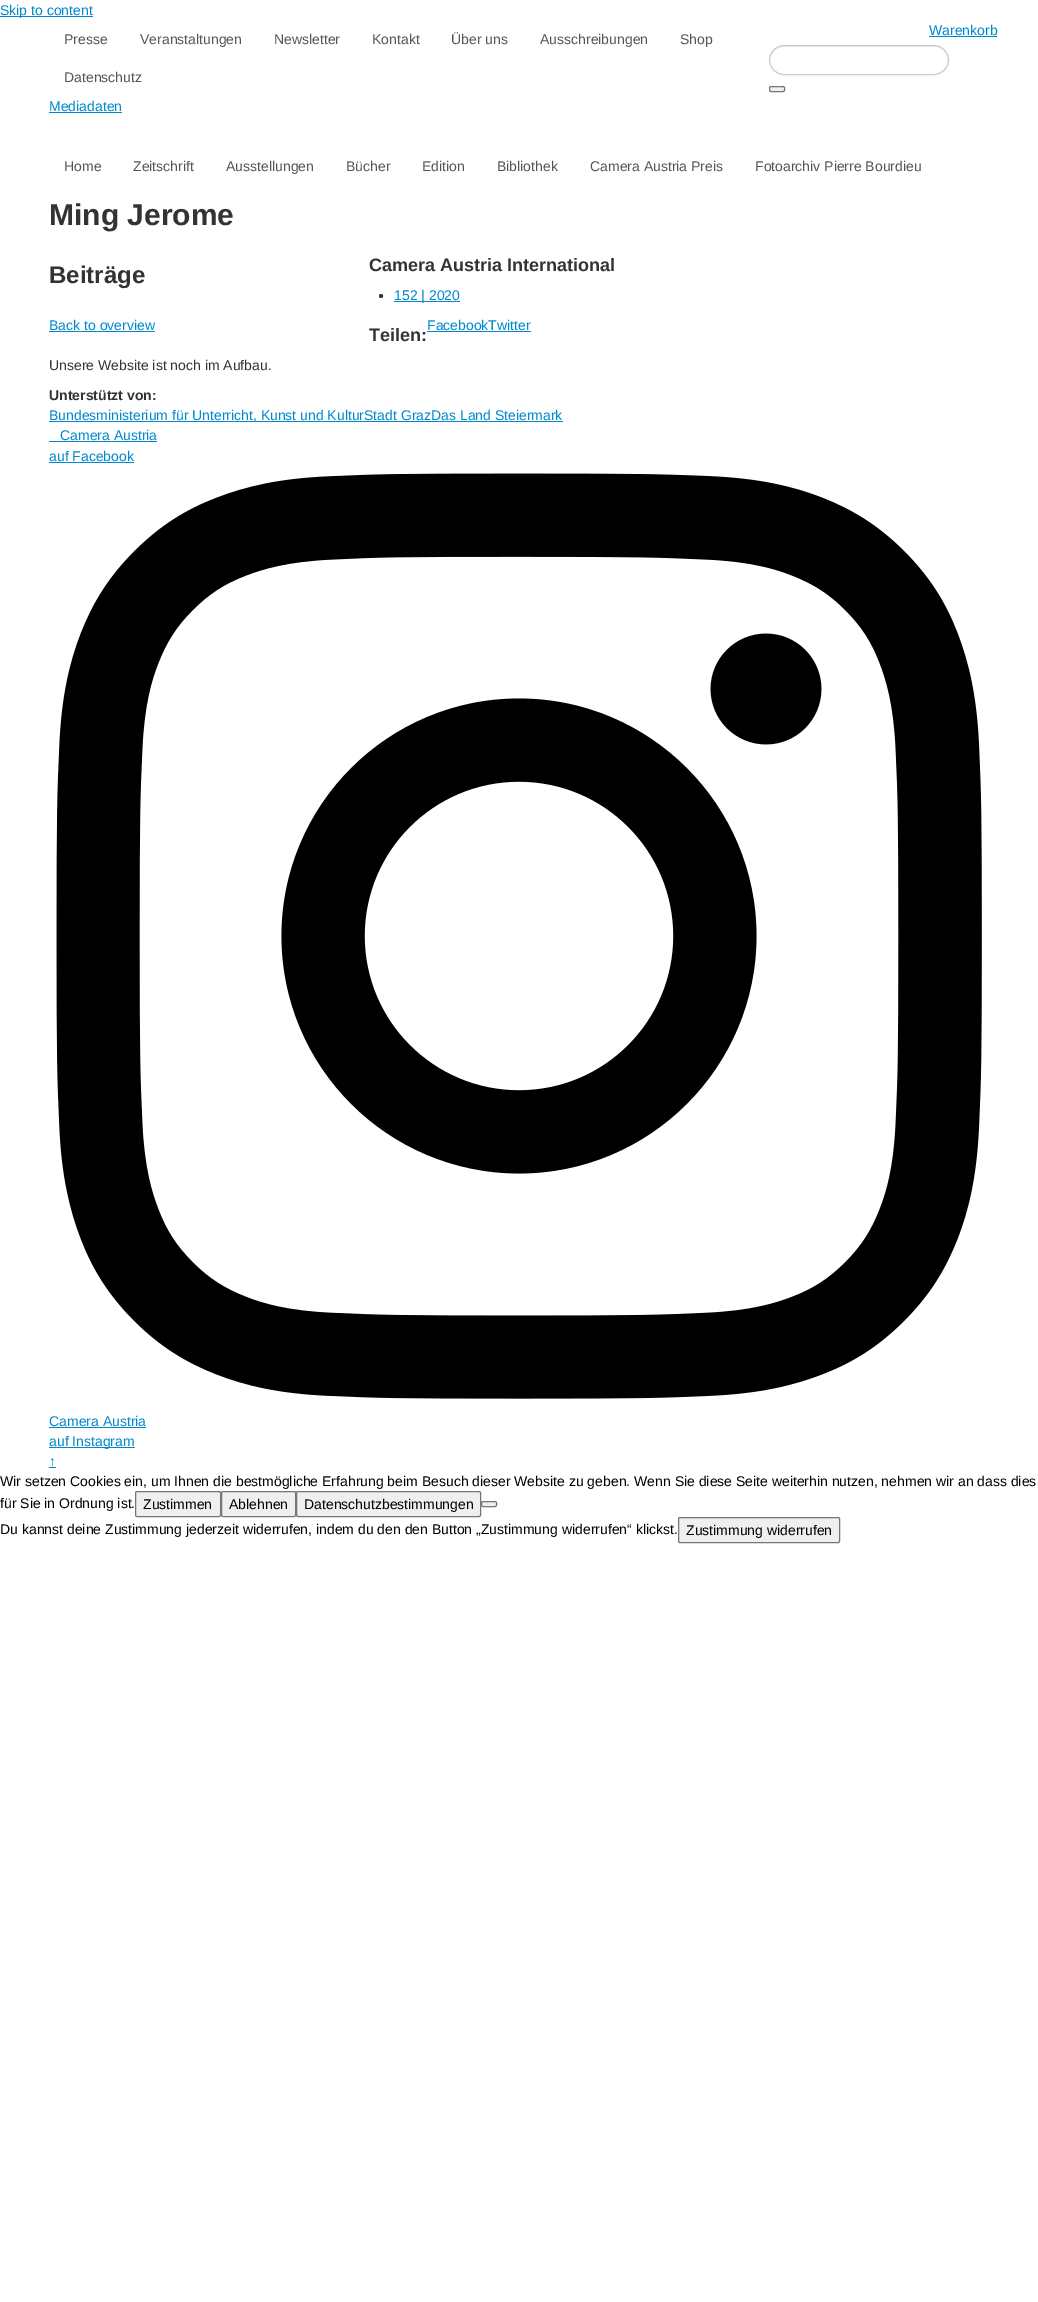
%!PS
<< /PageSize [1038 2302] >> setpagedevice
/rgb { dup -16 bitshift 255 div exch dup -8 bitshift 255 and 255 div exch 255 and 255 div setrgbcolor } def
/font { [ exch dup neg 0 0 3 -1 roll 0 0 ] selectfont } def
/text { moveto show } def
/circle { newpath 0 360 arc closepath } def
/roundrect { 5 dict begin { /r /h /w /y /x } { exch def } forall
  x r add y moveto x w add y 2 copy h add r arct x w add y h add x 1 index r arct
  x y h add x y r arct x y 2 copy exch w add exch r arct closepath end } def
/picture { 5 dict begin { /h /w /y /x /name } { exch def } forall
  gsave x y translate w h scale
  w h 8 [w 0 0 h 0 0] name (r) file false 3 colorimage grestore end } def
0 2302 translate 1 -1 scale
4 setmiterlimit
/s1 { /LiberationSans-Regular 14 font 16#0088CC rgb } def
/s2 { /LiberationSans-Regular 14 font 16#555555 rgb } def
/s3 { /LiberationSans-Bold 30 font 16#333333 rgb } def
/s4 { /LiberationSans-Bold 24 font 16#333333 rgb } def
/s5 { /LiberationSans-Bold 18 font 16#333333 rgb } def
/s6 { /LiberationSans-Regular 14 font 16#333333 rgb } def
/s7 { /LiberationSans-Bold 14 font 16#333333 rgb } def
/s8 { /LiberationSans-Regular 14 font 16#000000 rgb } def
16#FFFFFF rgb
0 0 1038 2302 rectfill
16#0088CC rgb
0 16 93 1 rectfill
s1
(Skip to content) 0 15 text
(Warenkorb) 929 35 text
929 36 68 1 rectfill
s2
(Presse) 64 44 text
(Veranstaltungen) 140 44 text
(Newsletter) 274 44 text
(Kontakt) 372 44 text
(Über uns) 451 44 text
(Ausschreibungen) 540 44 text
(Shop) 680 44 text
(Datenschutz) 64 82 text
s1
(Mediadaten) 49 111 text
49 112 73 1 rectfill
16#ECECEC rgb
784 47 moveto 937 47 lineto 945 49 949 56 948 63 curveto 948 60 948 57 947 55 curveto 941 41 918 46 909 46 curveto 809 46 lineto 799 46 768 40 770 61 curveto 770 54 775 47 784 47 curveto closepath fill
16#CCCCCC rgb
769.5 45.5 179 29 14.5 roundrect stroke
16#EFEFEF rgb
769.5 86.5 15 5 1.5 roundrect gsave fill grestore
16#767676 rgb
stroke
s2
(Home) 64 171 text
(Zeitschrift) 133 171 text
(Ausstellungen) 226 171 text
(Bücher) 346 171 text
(Edition) 422 171 text
(Bibliothek) 497 171 text
(Camera Austria Preis) 590 171 text
(Fotoarchiv Pierre Bourdieu) 755 171 text
s3
(Ming Jerome) 49 225 text
s4
(Beiträge) 49 283 text
s5
(Camera Austria International) 369 271 text
381 296 2 circle fill
16#0088CC rgb
394 301 66 1 rectfill
s1
(152 | 2020) 394 300 text
(Back to overview) 49 330 text
49 331 106 1 rectfill
(FacebookTwitter) 427 330 text
427 331 104 1 rectfill
s5
(Teilen:) 369 341 text
s6
(Unsere Website ist noch im Aufbau.) 49 370 text
s7
(Unterstützt von:) 49 400 text
16#0088CC rgb
49 421 514 1 rectfill
s1
(Bundesministerium für Unterricht, Kunst und KulturStadt GrazDas Land Steiermark) 49 420 text
(Camera Austria) 60 440 text
49 441 108 1 rectfill
(auf Facebook) 49 461 text
49 462 85 1 rectfill
(pic1.raw) 56 473 926 926 picture
(Camera Austria) 49 1426 text
49 1427 97 1 rectfill
49 1447 86 1 rectfill
(auf Instagram) 49 1446 text
(↑) 49 1466 text
49 1467 7 1 rectfill
s8
(Wir setzen Cookies ein, um Ihnen die bestmögliche Erfahrung beim Besuch dieser Website zu geben. Wenn Sie diese Seite weiterhin nutzen, nehmen wir an dass dies) 0 1486 text
(für Sie in Ordnung ist.) 0 1508 text
16#EFEFEF rgb
135.5 1491.5 85 25 1.5 roundrect gsave fill grestore
16#767676 rgb
stroke
s8
(Zustimmen) 143 1509 text
16#EFEFEF rgb
221.5 1491.5 74 25 1.5 roundrect gsave fill grestore
16#767676 rgb
stroke
s8
(Ablehnen) 229 1509 text
16#EFEFEF rgb
296.5 1491.5 184 25 1.5 roundrect gsave fill grestore
16#767676 rgb
stroke
s8
(Datenschutzbestimmungen) 304 1509 text
16#EFEFEF rgb
481.5 1501.5 15 5 1.5 roundrect gsave fill grestore
16#767676 rgb
stroke
s8
(Du kannst deine Zustimmung jederzeit widerrufen, indem du den den Button „Zustimmung widerrufen“ klickst.) 0 1534 text
16#EFEFEF rgb
678.5 1517.5 161 25 1.5 roundrect gsave fill grestore
16#767676 rgb
stroke
s8
(Zustimmung widerrufen) 686 1535 text
showpage
